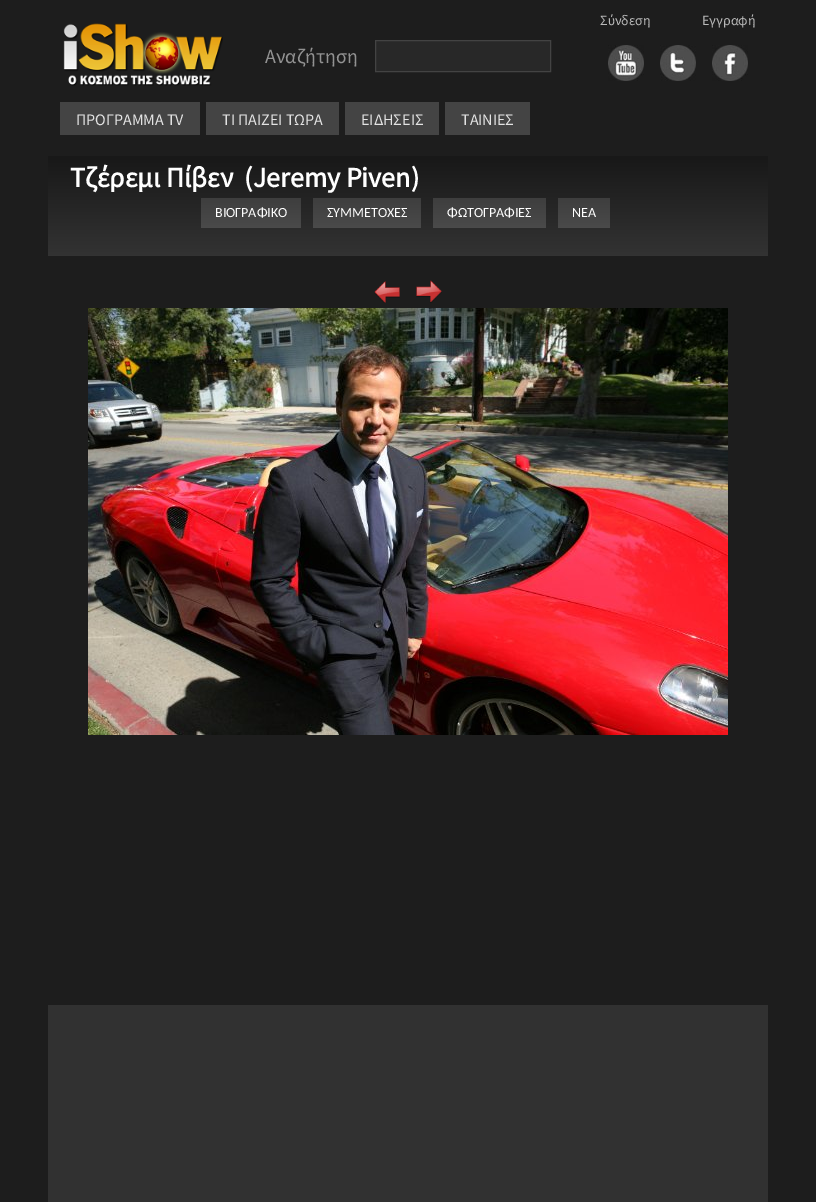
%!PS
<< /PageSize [816 1202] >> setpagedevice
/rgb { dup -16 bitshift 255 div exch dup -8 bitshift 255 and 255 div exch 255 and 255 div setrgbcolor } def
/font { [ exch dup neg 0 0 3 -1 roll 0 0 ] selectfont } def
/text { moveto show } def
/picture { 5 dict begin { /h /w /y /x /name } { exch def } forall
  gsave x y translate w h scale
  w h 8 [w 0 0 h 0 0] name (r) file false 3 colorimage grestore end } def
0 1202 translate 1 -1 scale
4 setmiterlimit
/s1 { /SourceSansPro-Regular 14 font 16#B9B9B9 rgb } def
/s2 { /SourceSansPro-Regular 20 font 16#929292 rgb } def
/s3 { /SourceSansPro-Regular 16 font 16#E3E3E3 rgb } def
/s4 { /SourceSansPro-Bold 28 font 16#FFFFFF rgb } def
/s5 { /Carlito-Regular 14 font 16#FFFFFF rgb } def
16#1D1D1D rgb
0 0 816 1202 rectfill
s1
(Σύνδεση) 600 25 text
(Εγγραφή) 702 25 text
(pic1.raw) 608 45 36 36 picture
(pic2.raw) 660 45 36 36 picture
(pic3.raw) 712 45 36 36 picture
(pic4.raw) 63 23 160 63 picture
s2
(Αναζήτηση) 265 63 text
16#282828 rgb
375.5 40.5 moveto 550.5 40.5 lineto 550.5 71.5 lineto 375.5 71.5 lineto closepath gsave fill grestore
16#434343 rgb
stroke
16#444444 rgb
60 102 140 33 rectfill
s3
(ΠΡΟΓΡΑΜΜΑ TV) 76 125 text
16#444444 rgb
206 102 133 33 rectfill
s3
(ΤΙ ΠΑΙΖΕΙ ΤΩΡΑ) 222 125 text
16#444444 rgb
345 102 94 33 rectfill
s3
(ΕΙΔΗΣΕΙΣ) 361 125 text
16#444444 rgb
445 102 85 33 rectfill
s3
(ΤΑΙΝΙΕΣ) 461 125 text
gsave 48 156 moveto 768 156 lineto 768 256 lineto 48 256 lineto closepath clip newpath
<< /ShadingType 2 /ColorSpace /DeviceRGB /Coords [408 156 408 256] /Extend [true true] /Function << /FunctionType 2 /Domain [0 1] /C0 [0.094 0.094 0.094] /C1 [0.2 0.2 0.2] /N 1 >> >> shfill grestore
s4
(Τζέρεμι Πίβεν  \(Jeremy Piven\)) 70 187 text
gsave 201 198 moveto 301 198 lineto 301 228 lineto 201 228 lineto closepath clip newpath
<< /ShadingType 2 /ColorSpace /DeviceRGB /Coords [251 198 251 228] /Extend [true true] /Function << /FunctionType 2 /Domain [0 1] /C0 [0.243 0.243 0.243] /C1 [0.29 0.29 0.29] /N 1 >> >> shfill grestore
s5
(ΒΙΟΓΡΑΦΙΚΟ) 215 217 text
gsave 313 198 moveto 421 198 lineto 421 228 lineto 313 228 lineto closepath clip newpath
<< /ShadingType 2 /ColorSpace /DeviceRGB /Coords [367 198 367 228] /Extend [true true] /Function << /FunctionType 2 /Domain [0 1] /C0 [0.243 0.243 0.243] /C1 [0.29 0.29 0.29] /N 1 >> >> shfill grestore
(ΣΥΜΜΕΤΟΧΕΣ) 327 217 text
gsave 433 198 moveto 546 198 lineto 546 228 lineto 433 228 lineto closepath clip newpath
<< /ShadingType 2 /ColorSpace /DeviceRGB /Coords [490 198 490 228] /Extend [true true] /Function << /FunctionType 2 /Domain [0 1] /C0 [0.243 0.243 0.243] /C1 [0.29 0.29 0.29] /N 1 >> >> shfill grestore
(ΦΩΤΟΓΡΑΦΙΕΣ) 447 217 text
gsave 558 198 moveto 610 198 lineto 610 228 lineto 558 228 lineto closepath clip newpath
<< /ShadingType 2 /ColorSpace /DeviceRGB /Coords [584 198 584 228] /Extend [true true] /Function << /FunctionType 2 /Domain [0 1] /C0 [0.243 0.243 0.243] /C1 [0.29 0.29 0.29] /N 1 >> >> shfill grestore
(ΝΕΑ) 572 217 text
(pic5.raw) 374 281 26 22 picture
(pic6.raw) 416 280 26 23 picture
(pic7.raw) 88 308 640 427 picture
16#313131 rgb
48 1005 720 197 rectfill
showpage
